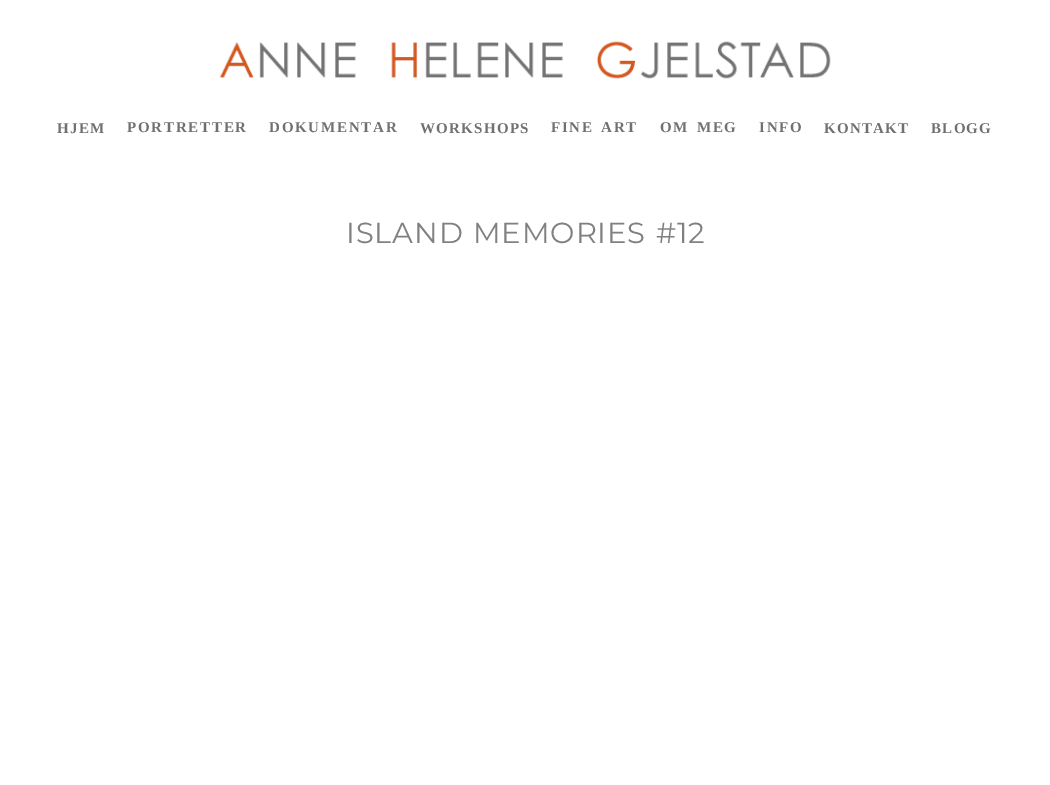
%!PS
<< /PageSize [1050 785] >> setpagedevice
/rgb { dup -16 bitshift 255 div exch dup -8 bitshift 255 and 255 div exch 255 and 255 div setrgbcolor } def
/font { [ exch dup neg 0 0 3 -1 roll 0 0 ] selectfont } def
/picture { 5 dict begin { /h /w /y /x /name } { exch def } forall
  gsave x y translate w h scale
  w h 8 [w 0 0 h 0 0] name (r) file false 3 colorimage grestore end } def
0 785 translate 1 -1 scale
4 setmiterlimit
16#FFFFFF rgb
0 0 1050 785 rectfill
(pic1.raw) 219 41 612 38 picture
/LiberationSerif-Bold 15 font
16#707070 rgb
57 133 moveto 1.25 0 (HJEM) ashow
127 132 moveto 1.75 0 (PORTRETTER) ashow
269 132 moveto 1.75 0 (DOKUMENTAR) ashow
420 133 moveto 1.25 0 (WORKSHOPS) ashow
551 132 moveto 2 0 32 1.75 0 (FINE ART) awidthshow
660 132 moveto 2 0 32 1.75 0 (OM MEG) awidthshow
759 132 moveto 1.75 0 (INFO) ashow
824 133 moveto 1.25 0 (KONTAKT) ashow
931 133 moveto 1.25 0 (BLOGG) ashow
/Montserrat-Thin 29 font
16#808080 rgb
346 243 moveto 1 0 32 0.9 0 (ISLAND MEMORIES #12) awidthshow
showpage
